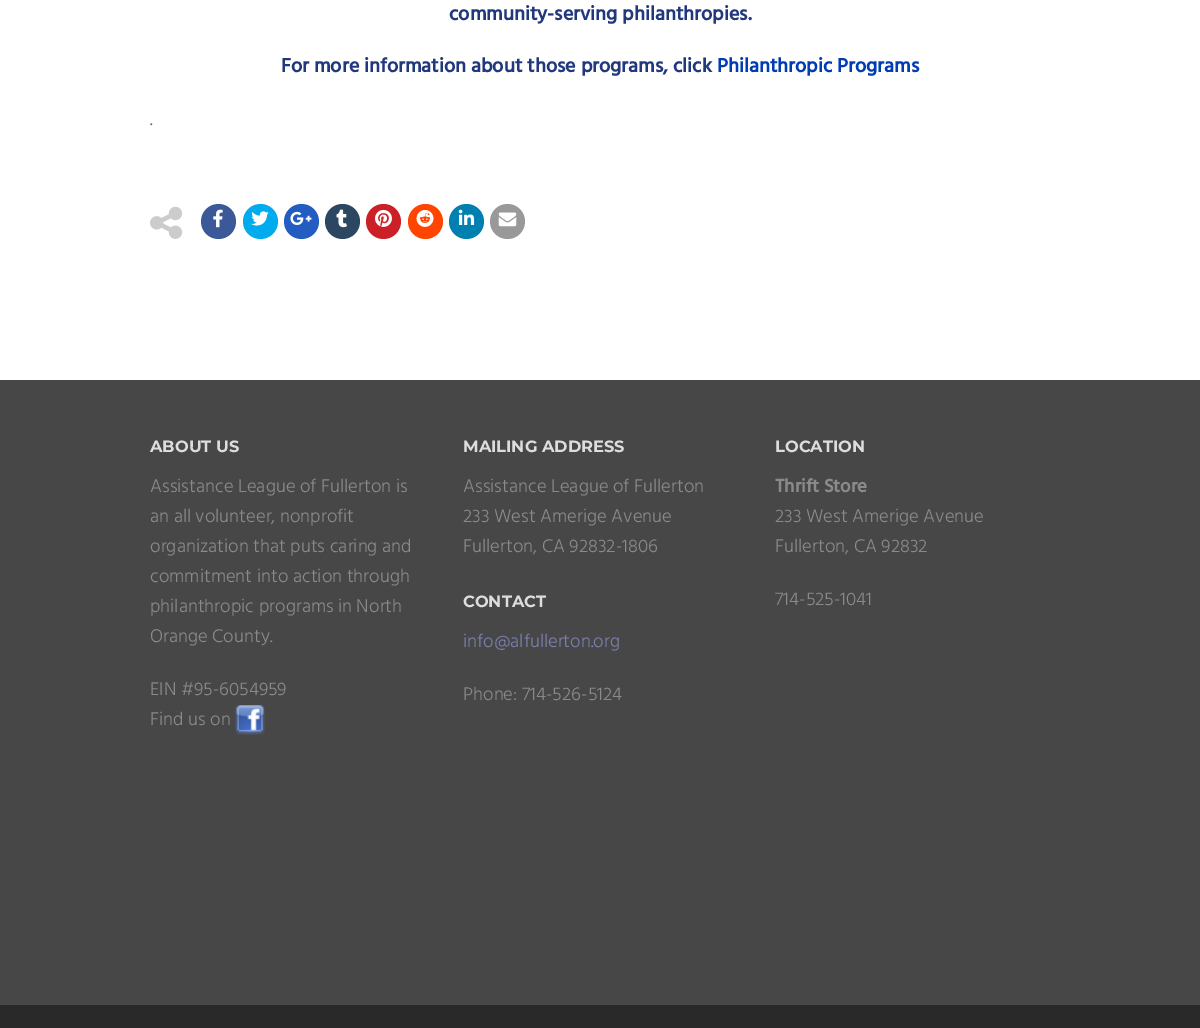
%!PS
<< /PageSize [1200 1028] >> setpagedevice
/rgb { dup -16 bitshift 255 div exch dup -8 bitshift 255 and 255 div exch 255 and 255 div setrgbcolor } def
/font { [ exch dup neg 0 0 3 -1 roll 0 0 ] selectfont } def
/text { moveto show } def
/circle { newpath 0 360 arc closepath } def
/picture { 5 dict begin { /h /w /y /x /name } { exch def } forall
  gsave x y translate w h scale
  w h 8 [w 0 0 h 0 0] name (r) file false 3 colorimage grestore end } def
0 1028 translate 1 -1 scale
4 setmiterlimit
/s1 { /Hind-Bold 20 font 16#22387D rgb } def
/s2 { /Hind-Bold 20 font 16#003CB3 rgb } def
/s3 { /Hind-Light 18.75 font 16#666666 rgb } def
/s4 { /Montserrat-Thin 16.25 font 16#DDDDDD rgb } def
/s5 { /Hind-Light 18.75 font 16#8A8A8A rgb } def
/s6 { /Hind-Light 18.75 font 16#7B7FAE rgb } def
/s7 { /Hind-Bold 18.75 font 16#8A8A8A rgb } def
16#FFFFFF rgb
0 0 1200 1028 rectfill
s1
(community-serving philanthropies.) 449 20 text
(For more information about those programs, click) 281 72 text
s2
(Philanthropic Programs) 717 72 text
s3
(.) 150 125 text
(pic1.raw) 150 206 33 33 picture
16#3B5998 rgb
218.5 221.5 17.5 circle fill
(pic2.raw) 213 209 10 19 picture
16#00ACED rgb
260.5 221.5 17.5 circle fill
(pic3.raw) 251 211 18 15 picture
16#245DC1 rgb
301.5 221.5 17.5 circle fill
(pic4.raw) 290 211 22 14 picture
16#2C4762 rgb
342.5 221.5 17.5 circle fill
(pic5.raw) 336 209 11 19 picture
16#CB2027 rgb
383.5 221.5 17.5 circle fill
(pic6.raw) 375 210 17 17 picture
16#FF4500 rgb
425.5 221.5 17.5 circle fill
(pic7.raw) 416 210 18 17 picture
16#007FB1 rgb
466.5 221.5 17.5 circle fill
(pic8.raw) 458 209 17 16 picture
16#999999 rgb
507.5 221.5 17.5 circle fill
(pic9.raw) 498 212 19 15 picture
16#474747 rgb
0 380 1200 625 rectfill
s4
(ABOUT US) 150 452 text
s5
(Assistance League of Fullerton is) 150 492 text
(an all volunteer, nonprofit) 150 522 text
(organization that puts caring and) 150 552 text
(commitment into action through) 150 582 text
(philanthropic programs in North) 150 612 text
(Orange County.) 150 642 text
(EIN #95-6054959) 150 695 text
(Find us on) 150 725 text
(pic10.raw) 235 705 30 30 picture
s4
(MAILING ADDRESS) 463 452 text
s5
(Assistance League of Fullerton) 463 492 text
(233 West Amerige Avenue) 463 522 text
(Fullerton, CA 92832-1806) 463 552 text
s4
(CONTACT) 463 607 text
s6
(info@alfullerton.org) 463 647 text
s5
(Phone: 714-526-5124) 463 700 text
s4
(LOCATION) 775 452 text
s7
(Thrift Store) 775 492 text
s5
(233 West Amerige Avenue) 775 522 text
(Fullerton, CA 92832) 775 552 text
(714-525-1041) 775 605 text
16#292929 rgb
0 1005 1200 23 rectfill
showpage
